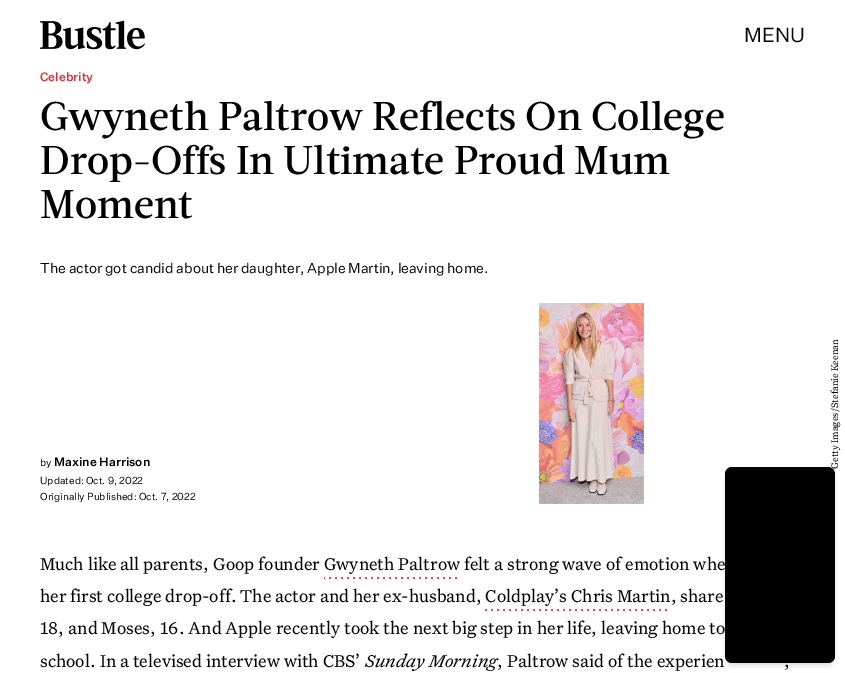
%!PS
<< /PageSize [845 673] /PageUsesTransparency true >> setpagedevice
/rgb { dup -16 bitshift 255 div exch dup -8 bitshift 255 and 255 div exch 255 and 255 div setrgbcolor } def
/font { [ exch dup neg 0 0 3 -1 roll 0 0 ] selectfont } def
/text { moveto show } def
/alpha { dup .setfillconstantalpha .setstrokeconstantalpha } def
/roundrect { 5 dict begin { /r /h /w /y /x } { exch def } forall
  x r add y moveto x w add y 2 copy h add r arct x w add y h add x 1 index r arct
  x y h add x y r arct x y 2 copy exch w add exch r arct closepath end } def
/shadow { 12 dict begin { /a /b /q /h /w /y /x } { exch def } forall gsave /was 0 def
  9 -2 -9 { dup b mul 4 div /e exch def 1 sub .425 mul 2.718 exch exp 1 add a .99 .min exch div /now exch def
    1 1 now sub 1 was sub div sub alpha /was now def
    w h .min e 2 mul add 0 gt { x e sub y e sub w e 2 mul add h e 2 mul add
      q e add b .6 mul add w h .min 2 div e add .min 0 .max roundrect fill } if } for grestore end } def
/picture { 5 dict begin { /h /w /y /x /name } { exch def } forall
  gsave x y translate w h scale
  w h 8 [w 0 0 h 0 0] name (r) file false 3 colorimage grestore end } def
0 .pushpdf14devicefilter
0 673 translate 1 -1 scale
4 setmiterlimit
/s1 { /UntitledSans-Regular 20 font 16#000000 rgb } def
/s2 { /UntitledSans-Medium 12 font 16#DB3336 rgb } def
/s3 { /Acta-Medium 40 font 16#000000 rgb } def
/s4 { /UntitledSans-Regular 10 font 16#000000 rgb } def
/s5 { /UntitledSans-Medium 12 font 16#000000 rgb } def
/s6 { /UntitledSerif-Regular 18.4 font 16#000000 rgb } def
/s7 { /UntitledSerif-Italic 18.4 font 16#000000 rgb } def
16#FFFFFF rgb
0 0 845 673 rectfill
(pic1.raw) 40 20 105 30 picture
s1
(MENU) 744 42 text
s2
(Celebrity) 40 81 text
s3
(Gwyneth Paltrow Reflects On College) 40 130 text
(Drop-Offs In Ultimate Proud Mum) 40 174 text
(Moment) 40 218 text
/UntitledSans-Regular 14 font
40 273 moveto -0.1 0 (The actor got candid about her daughter, Apple Martin, leaving home.) ashow
s4
(by) 40 466 text
s5
(Maxine Harrison) 54 466 text
s4
(Updated: Oct. 9, 2022) 40 484 text
(Originally Published: Oct. 7, 2022) 40 500 text
(pic2.raw) 538 303 106 201 picture
/UntitledSerif-Regular 10 font
gsave 838 469 translate -90 rotate 0 0 moveto (Getty Images/Stefanie Keenan) show grestore
s6
(Much like all parents, Goop founder Gwyneth Paltrow felt a strong wave of emotion whe) 40 570 text
(pic3.raw) 324 577 133 2 picture
(her first college drop-off. The actor and her ex-husband, Coldplay’s Chris Martin, share) 40 602 text
(pic4.raw) 485 609 182 2 picture
(18, and Moses, 16. And Apple recently took the next big step in her life, leaving home to) 40 634 text
(school. In a televised interview with CBS’) 40 667 text
s7
(Sunday Morning) 365 667 text
s6
(, Paltrow said of the experien) 497 667 text
(,) 784 667 text
727 471 106 192 5 2 0.1 shadow
726 472 108 194 6 3 0.1 shadow
725 467 110 196 7 roundrect fill
.poppdf14devicefilter showpage
